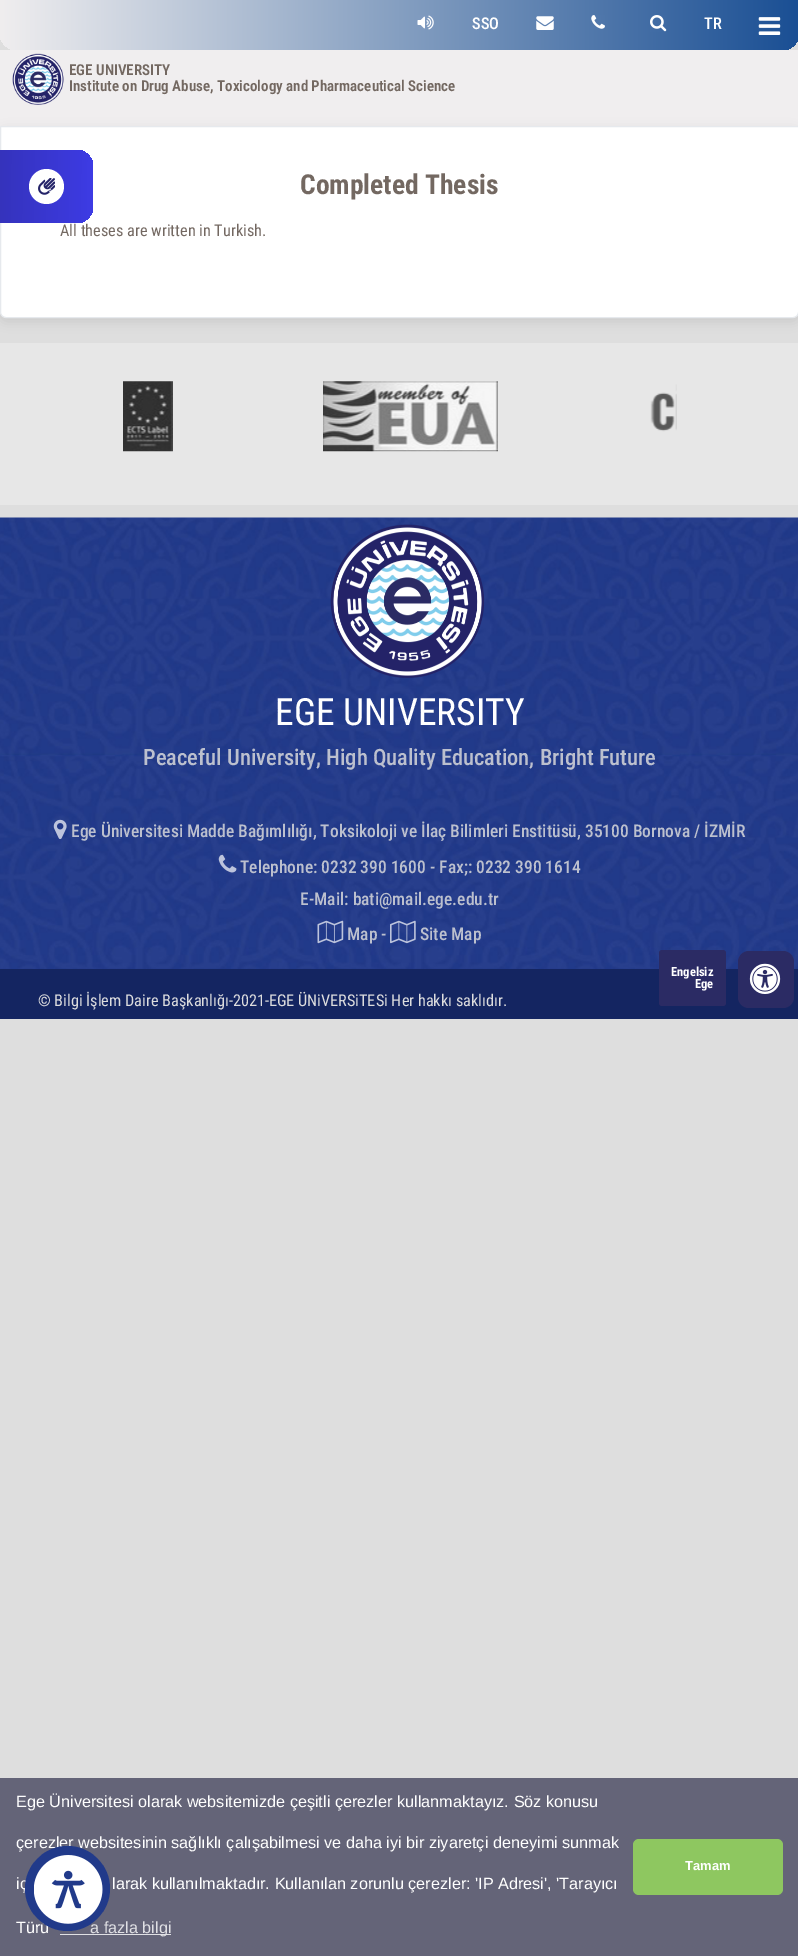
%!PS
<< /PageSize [798 1956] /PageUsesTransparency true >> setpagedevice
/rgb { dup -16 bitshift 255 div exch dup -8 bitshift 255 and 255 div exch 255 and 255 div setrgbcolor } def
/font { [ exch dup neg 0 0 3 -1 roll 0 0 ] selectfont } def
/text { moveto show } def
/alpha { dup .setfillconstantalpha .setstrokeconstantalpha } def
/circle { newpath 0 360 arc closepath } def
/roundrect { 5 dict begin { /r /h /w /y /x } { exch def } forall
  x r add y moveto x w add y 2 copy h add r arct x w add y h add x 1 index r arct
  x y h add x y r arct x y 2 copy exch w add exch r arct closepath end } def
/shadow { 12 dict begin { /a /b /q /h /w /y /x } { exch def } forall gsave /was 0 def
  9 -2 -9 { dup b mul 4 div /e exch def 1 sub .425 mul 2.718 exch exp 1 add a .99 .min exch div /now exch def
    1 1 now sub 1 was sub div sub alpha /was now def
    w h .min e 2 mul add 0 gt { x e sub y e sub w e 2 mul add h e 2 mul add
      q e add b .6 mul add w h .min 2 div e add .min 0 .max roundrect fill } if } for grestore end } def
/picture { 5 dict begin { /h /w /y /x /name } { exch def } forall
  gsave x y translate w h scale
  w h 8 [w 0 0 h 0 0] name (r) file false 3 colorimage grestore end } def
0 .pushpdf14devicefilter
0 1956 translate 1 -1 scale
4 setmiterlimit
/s1 { /RobotoCondensed-Medium 16.25 font 16#FFFFFF rgb } def
/s2 { /RobotoCondensed-SemiBold 15 font 16#736861 rgb } def
/s3 { /RobotoCondensed-Bold 27.5 font 16#736861 rgb } def
/s4 { /RobotoCondensed-Regular 16.25 font 16#736861 rgb } def
/s5 { /RobotoCondensed-Regular 37.5 font 16#FFFFFF rgb } def
/s6 { /RobotoCondensed-Medium 22.5 font 16#BCC0CE rgb } def
/s7 { /RobotoCondensed-Medium 17.5 font 16#BCC0CE rgb } def
/s8 { /RobotoCondensed-Regular 16.25 font 16#DDDDDE rgb } def
/s9 { /RobotoCondensed-Bold 12.5 font 16#FFFFFF rgb } def
/s10 { /LiberationSans-Regular 16.25 font 16#FFFFFF rgb } def
/s11 { /LiberationSans-Regular 16.25 font 16#E0E0E4 rgb } def
/s12 { /LiberationSans-Bold 13 font 16#FFFFFF rgb } def
16#DEDEDE rgb
0 0 798 1956 rectfill
gsave 0 0 moveto 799 0 lineto 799 34 lineto 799 43 792 50 783 50 curveto 16 50 lineto 7 50 0 43 0 34 curveto closepath clip newpath
<< /ShadingType 2 /ColorSpace /DeviceRGB /Coords [0 25 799 25] /Extend [true true] /Function << /FunctionType 2 /Domain [0 1] /C0 [0.941 0.933 0.937] /C1 [0.102 0.31 0.58] /N 1 >> >> shfill grestore
(pic1.raw) 417 15 17 15 picture
s1
(SSO) 472 29 text
(pic2.raw) 536 16 18 14 picture
(pic3.raw) 591 15 14 14 picture
(pic4.raw) 650 15 17 17 picture
(TR) 704 29 text
(pic5.raw) 758 17 23 18 picture
16#F0EEEF rgb
0 50 798 76 rectfill
(pic6.raw) 12 53 52 52 picture
s2
(EGE UNIVERSITY) 69 75 text
(Institute on Drug Abuse, Toxicology and Pharmaceutical Science) 69 91 text
16#000000 rgb
0 130 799 191 6 5.5 0.1 shadow
16#FFFFFF rgb
0.5 126.5 moveto 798.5 126.5 lineto 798.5 312 lineto 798.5 315 796 317.5 793 317.5 curveto 6 317.5 lineto 3 317.5 0.5 315 0.5 312 curveto closepath gsave fill grestore
16#E6E9ED rgb
stroke
s3
(Completed Thesis) 300 194 text
s4
(All theses are written in Turkish.) 60 236 text
16#E7E7E7 rgb
0 343 798 162 rectfill
(pic7.raw) 123 381 50 71 picture
(pic8.raw) 323 381 175 71 picture
(pic9.raw) 650 384 27 48 picture
(pic10.raw) 0 517 798 452 picture
(pic11.raw) 330 524 155 154 picture
s5
(EGE UNIVERSITY) 275 725 text
s6
(Peaceful University, High Quality Education, Bright Future) 143 765 text
(pic12.raw) 53 819 14 21 picture
s7
(Ege Üniversitesi Madde Bağımlılığı, Toksikoloji ve İlaç Bilimleri Enstitüsü, 35100 Bornova / İZMİR) 71 837 text
(pic13.raw) 218 854 19 19 picture
(Telephone: 0232 390 1600 - Fax;: 0232 390 1614) 240 873 text
(E-Mail: bati@mail.ege.edu.tr) 300 905 text
(pic14.raw) 317 920 27 24 picture
(Map -) 347 940 text
(pic15.raw) 390 920 26 24 picture
(Site Map) 420 940 text
16#142561 rgb
0 969 798 50 rectfill
s8
(© Bilgi İşlem Daire Başkanlığı-2021-EGE ÜNiVERSiTESi Her hakkı saklıdır.) 38 1006 text
gsave -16 150 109 73 16 roundrect clip newpath
<< /ShadingType 2 /ColorSpace /DeviceRGB /Coords [-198 184 93 188] /Extend [true true] /Function << /FunctionType 3 /Domain [0 1] /Functions [<< /FunctionType 2 /Domain [0 1] /C0 [0.141 0.137 0.408] /C1 [0.239 0.231 0.89] /N 1 >> << /FunctionType 2 /Domain [0 1] /C0 [0.239 0.231 0.89] /C1 [0.239 0.231 0.89] /N 1 >>] /Bounds [0.99] /Encode [0 1 0 1] >> >> shfill grestore
16#FFFFFF rgb
46.5 186.5 17.5 circle fill
(pic16.raw) 38 178 17 17 picture
16#2B2B64 rgb
738 951 56 57 11 roundrect fill
659 950 67 56 3 roundrect fill
s9
(Engelsiz) 671 976 text
(Ege) 695 988 text
(pic17.raw) 749 963 32 31 picture
16#646478 rgb
0 1778 798 178 rectfill
s10
(Ege Üniversitesi olarak websitemizde çeşitli çerezler kullanmaktayız. Söz konusu) 16 1807 text
(çerezler websitesinin sağlıklı çalışabilmesi ve daha iyi bir ziyaretçi deneyimi sunmak) 16 1848 text
(iç) 16 1889 text
(larak kullanılmaktadır. Kullanılan zorunlu çerezler: 'IP Adresi', 'Tarayıcı) 112 1889 text
(Türü) 16 1933 text
16#E0E0E4 rgb
60 1934 111 1 rectfill
(a fazla bilgi) 90 1933 text
16#8EC760 rgb
633 1839 150 56 6 roundrect fill
s12
(Tamam) 685 1870 text
16#213A8A rgb
67.5 1888.5 42.5 circle fill
(pic18.raw) 34 1855 69 69 picture
.poppdf14devicefilter showpage
